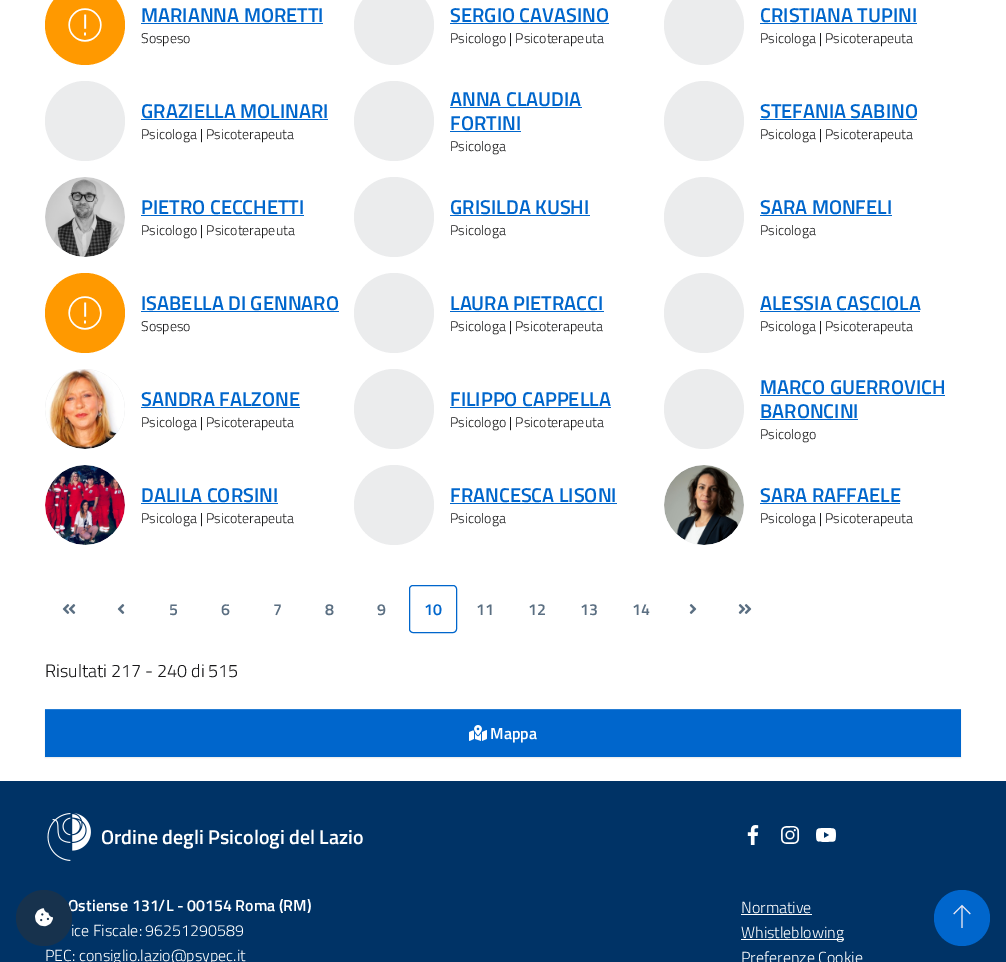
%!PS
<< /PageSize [1006 962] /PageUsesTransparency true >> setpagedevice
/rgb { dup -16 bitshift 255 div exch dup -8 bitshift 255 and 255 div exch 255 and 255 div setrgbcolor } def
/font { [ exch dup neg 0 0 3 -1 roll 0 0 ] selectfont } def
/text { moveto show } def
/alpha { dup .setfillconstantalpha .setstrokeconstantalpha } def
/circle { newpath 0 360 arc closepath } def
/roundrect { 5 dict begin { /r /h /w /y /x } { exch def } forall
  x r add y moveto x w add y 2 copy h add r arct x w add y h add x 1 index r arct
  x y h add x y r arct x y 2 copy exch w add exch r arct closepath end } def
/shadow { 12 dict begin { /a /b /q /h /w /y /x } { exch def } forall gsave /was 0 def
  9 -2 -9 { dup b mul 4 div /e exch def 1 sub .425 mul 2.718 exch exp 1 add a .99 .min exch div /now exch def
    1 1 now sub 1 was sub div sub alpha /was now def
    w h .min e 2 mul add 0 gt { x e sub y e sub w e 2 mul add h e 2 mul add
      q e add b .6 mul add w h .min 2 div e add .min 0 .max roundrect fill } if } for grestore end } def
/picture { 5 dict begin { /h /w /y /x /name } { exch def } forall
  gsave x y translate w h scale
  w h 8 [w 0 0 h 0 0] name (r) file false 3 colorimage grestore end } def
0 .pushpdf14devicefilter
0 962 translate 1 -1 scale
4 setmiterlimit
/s1 { /TitilliumWeb-SemiBold 20 font 16#0066CC rgb } def
/s2 { /TitilliumWeb-Light 14 font 16#19191A rgb } def
/s3 { /TitilliumWeb-SemiBold 16 font 16#5B6F82 rgb } def
/s4 { /TitilliumWeb-SemiBold 16 font 16#0066CC rgb } def
/s5 { /TitilliumWeb-Light 18 font 16#19191A rgb } def
/s6 { /TitilliumWeb-SemiBold 16 font 16#FFFFFF rgb } def
/s7 { /TitilliumWeb-Light 16 font 16#FFFFFF rgb } def
/s8 { /TitilliumWeb-SemiBold 20 font 16#FFFFFF rgb } def
16#FFFFFF rgb
0 0 1006 962 rectfill
16#FF9900 rgb
85 25 40 circle fill
(pic1.raw) 68 8 34 34 picture
s1
(MARIANNA MORETTI) 141 22 text
141 23 182 1 rectfill
s2
(Sospeso) 141 43 text
16#EBECED rgb
394 25 40 circle fill
s1
(SERGIO CAVASINO) 450 22 text
450 23 159 1 rectfill
s2
(Psicologo | Psicoterapeuta) 450 43 text
16#EBECED rgb
704 25 40 circle fill
s1
(CRISTIANA TUPINI) 760 22 text
760 23 157 1 rectfill
s2
(Psicologa | Psicoterapeuta) 760 43 text
16#EBECED rgb
85 121 40 circle fill
s1
(GRAZIELLA MOLINARI) 141 118 text
141 119 187 1 rectfill
s2
(Psicologa | Psicoterapeuta) 141 139 text
16#EBECED rgb
394 121 40 circle fill
s1
(ANNA CLAUDIA) 450 106 text
450 107 132 1 rectfill
(FORTINI) 450 130 text
450 131 71 1 rectfill
s2
(Psicologa) 450 151 text
16#EBECED rgb
704 121 40 circle fill
s1
(STEFANIA SABINO) 760 118 text
760 119 157 1 rectfill
s2
(Psicologa | Psicoterapeuta) 760 139 text
16#EBECED rgb
85 217 40 circle fill
(pic2.raw) 45 177 80 80 picture
s1
(PIETRO CECCHETTI) 141 214 text
141 215 163 1 rectfill
s2
(Psicologo | Psicoterapeuta) 141 235 text
16#EBECED rgb
394 217 40 circle fill
s1
(GRISILDA KUSHI) 450 214 text
450 215 140 1 rectfill
s2
(Psicologa) 450 235 text
16#EBECED rgb
704 217 40 circle fill
s1
(SARA MONFELI) 760 214 text
760 215 132 1 rectfill
s2
(Psicologa) 760 235 text
16#FF9900 rgb
85 313 40 circle fill
(pic3.raw) 68 296 34 34 picture
s1
(ISABELLA DI GENNARO) 141 310 text
141 311 198 1 rectfill
s2
(Sospeso) 141 331 text
16#EBECED rgb
394 313 40 circle fill
s1
(LAURA PIETRACCI) 450 310 text
450 311 154 1 rectfill
s2
(Psicologa | Psicoterapeuta) 450 331 text
16#EBECED rgb
704 313 40 circle fill
s1
(ALESSIA CASCIOLA) 760 310 text
760 311 160 1 rectfill
s2
(Psicologa | Psicoterapeuta) 760 331 text
16#EBECED rgb
85 409 40 circle fill
(pic4.raw) 45 369 80 80 picture
s1
(SANDRA FALZONE) 141 406 text
141 407 159 1 rectfill
s2
(Psicologa | Psicoterapeuta) 141 427 text
16#EBECED rgb
394 409 40 circle fill
s1
(FILIPPO CAPPELLA) 450 406 text
450 407 161 1 rectfill
s2
(Psicologo | Psicoterapeuta) 450 427 text
16#EBECED rgb
704 409 40 circle fill
s1
(MARCO GUERROVICH) 760 394 text
760 395 185 1 rectfill
(BARONCINI) 760 418 text
760 419 98 1 rectfill
s2
(Psicologo) 760 439 text
16#EBECED rgb
85 505 40 circle fill
(pic5.raw) 45 465 80 80 picture
s1
(DALILA CORSINI) 141 502 text
141 503 137 1 rectfill
s2
(Psicologa | Psicoterapeuta) 141 523 text
16#EBECED rgb
394 505 40 circle fill
s1
(FRANCESCA LISONI) 450 502 text
450 503 167 1 rectfill
s2
(Psicologa) 450 523 text
16#EBECED rgb
704 505 40 circle fill
(pic6.raw) 664 465 80 80 picture
s1
(SARA RAFFAELE) 760 502 text
760 503 140 1 rectfill
s2
(Psicologa | Psicoterapeuta) 760 523 text
(pic7.raw) 62 604 14 10 picture
(pic8.raw) 117 604 8 10 picture
s3
(5) 169 615 text
(6) 221 615 text
(7) 273 615 text
(8) 325 615 text
(9) 377 615 text
16#0066CC rgb
409.5 585.5 47 47 3.5 roundrect stroke
(10) 424 615 text
s3
(11) 476 615 text
(12) 528 615 text
(13) 580 615 text
(14) 632 615 text
(pic9.raw) 689 604 8 10 picture
(pic10.raw) 738 604 14 10 picture
s5
(Risultati 217 - 240 di 515) 45 677 text
16#000000 rgb
45 710 916 48 0 0.5 0.07 shadow
16#0066CC rgb
45 710 916 47 rectfill
16#267DD4 rgb
45 709 916 1 rectfill
(pic11.raw) 469 725 18 16 picture
s6
(Mappa) 490 739 text
16#003366 rgb
0 781 1006 181 rectfill
s6
(Ostiense 131/L - 00154 Roma \(RM\)) 68 911 text
s7
(ice Fiscale: 96251290589) 71 936 text
16#17324D rgb
44 918 28 circle fill
(pic12.raw) 35 908 18 19 picture
(pic13.raw) 47 813 44 48 picture
s8
(Ordine degli Psicologi del Lazio) 101 844 text
s7
(PEC: consiglio.lazio@psypec.it) 45 961 text
(pic14.raw) 747 825 12 20 picture
(pic15.raw) 781 826 19 18 picture
(pic16.raw) 816 828 20 14 picture
(Normative) 741 913 text
741 914 71 1 rectfill
741 939 103 1 rectfill
(Whistleblowing) 741 938 text
(Preferenze Cookie) 741 963 text
16#0066CC rgb
962 918 28 circle fill
(pic17.raw) 953 904 18 24 picture
.poppdf14devicefilter showpage
